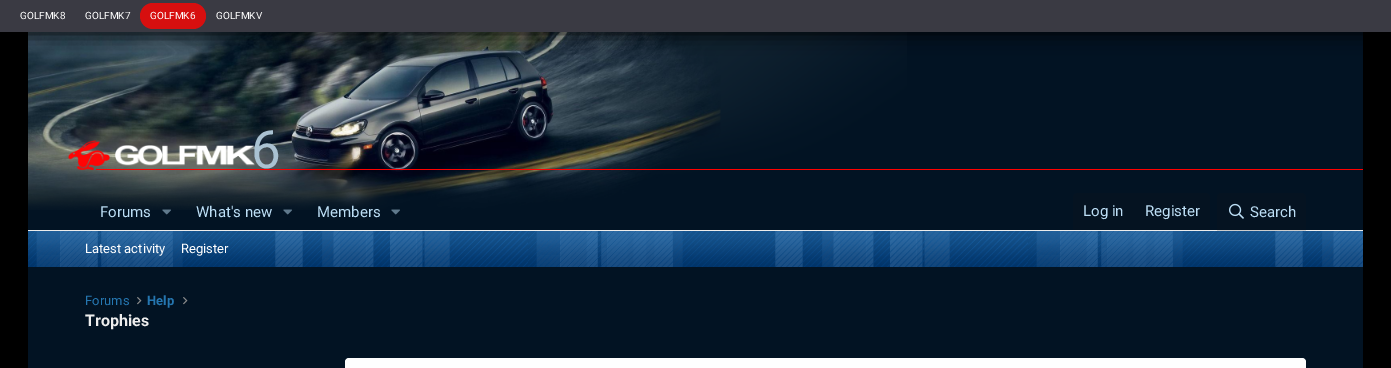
%!PS
<< /PageSize [1391 368] /PageUsesTransparency true >> setpagedevice
/rgb { dup -16 bitshift 255 div exch dup -8 bitshift 255 and 255 div exch 255 and 255 div setrgbcolor } def
/font { [ exch dup neg 0 0 3 -1 roll 0 0 ] selectfont } def
/text { moveto show } def
/alpha { dup .setfillconstantalpha .setstrokeconstantalpha } def
/roundrect { 5 dict begin { /r /h /w /y /x } { exch def } forall
  x r add y moveto x w add y 2 copy h add r arct x w add y h add x 1 index r arct
  x y h add x y r arct x y 2 copy exch w add exch r arct closepath end } def
/shadow { 12 dict begin { /a /b /q /h /w /y /x } { exch def } forall gsave /was 0 def
  9 -2 -9 { dup b mul 4 div /e exch def 1 sub .425 mul 2.718 exch exp 1 add a .99 .min exch div /now exch def
    1 1 now sub 1 was sub div sub alpha /was now def
    w h .min e 2 mul add 0 gt { x e sub y e sub w e 2 mul add h e 2 mul add
      q e add b .6 mul add w h .min 2 div e add .min 0 .max roundrect fill } if } for grestore end } def
/picture { 5 dict begin { /h /w /y /x /name } { exch def } forall
  gsave x y translate w h scale
  w h 8 [w 0 0 h 0 0] name (r) file false 3 colorimage grestore end } def
0 .pushpdf14devicefilter
0 368 translate 1 -1 scale
4 setmiterlimit
/s1 { /Roboto-Regular 10 font 16#FFFFFF rgb } def
/s2 { /Roboto-Regular 53 font 16#AAC2D2 rgb } def
/s3 { /Roboto-Regular 15 font 16#BCDEF5 rgb } def
/s4 { /Roboto-Regular 13 font 16#FFFFFF rgb } def
/s5 { /Roboto-Regular 13 font 16#2577B1 rgb } def
/s6 { /Roboto-Bold 13 font 16#2577B1 rgb } def
/s7 { /Roboto-Bold 16 font 16#EEEEEE rgb } def
16#000000 rgb
0 0 1391 368 rectfill
16#021323 rgb
28 32 1335 198 rectfill
(pic1.raw) 28 32 879 178 picture
16#000000 rgb
1 1 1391 32 0 10 1 shadow
16#3A3A43 rgb
0 0 1391 32 rectfill
s1
(GOLFMK8) 20 19 text
(GOLFMK7) 85 19 text
16#D70F0F rgb
140 3 66 26 13 roundrect fill
s1
(GOLFMK6) 150 19 text
(GOLFMKV) 216 19 text
16#ECECEC rgb
28 230 1335 1 rectfill
(pic2.raw) 68 140 42 30 picture
(pic3.raw) 115 145 140 21 picture
s2
(6) 251 168 text
16#FF0000 rgb
96 169 1267 1 rectfill
s3
(Forums) 100 217 text
(pic4.raw) 162 209 9 6 picture
(What's new) 196 217 text
(pic5.raw) 283 209 9 6 picture
(Members) 317 217 text
(pic6.raw) 391 209 9 6 picture
16#051321 rgb
1077 193 moveto 1206 193 lineto 1208 193 1210 195 1210 197 curveto 1210 230 lineto 1073 230 lineto 1073 197 lineto 1073 195 1075 193 1077 193 curveto closepath fill
s3
(Log in) 1083 216 text
(Register) 1145 216 text
0.15 alpha
16#141414 rgb
1221 193 moveto 1302 193 lineto 1304 193 1306 195 1306 197 curveto 1306 231 lineto 1217 231 lineto 1217 197 lineto 1217 195 1219 193 1221 193 curveto closepath fill
1 alpha
(pic7.raw) 1229 203 15 16 picture
s3
(Search) 1250 217 text
(pic8.raw) 28 231 1335 36 picture
s4
(Latest activity) 85 253 text
(Register) 181 253 text
16#021323 rgb
28 267 1335 101 rectfill
s5
(Forums) 85 305 text
(pic9.raw) 137 297 5 8 picture
s6
(Help) 147 305 text
(pic9.raw) 183 297 5 8 picture
s7
(Trophies) 85 326 text
16#FEFEFE rgb
345 358 961 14 4 roundrect fill
.poppdf14devicefilter showpage
